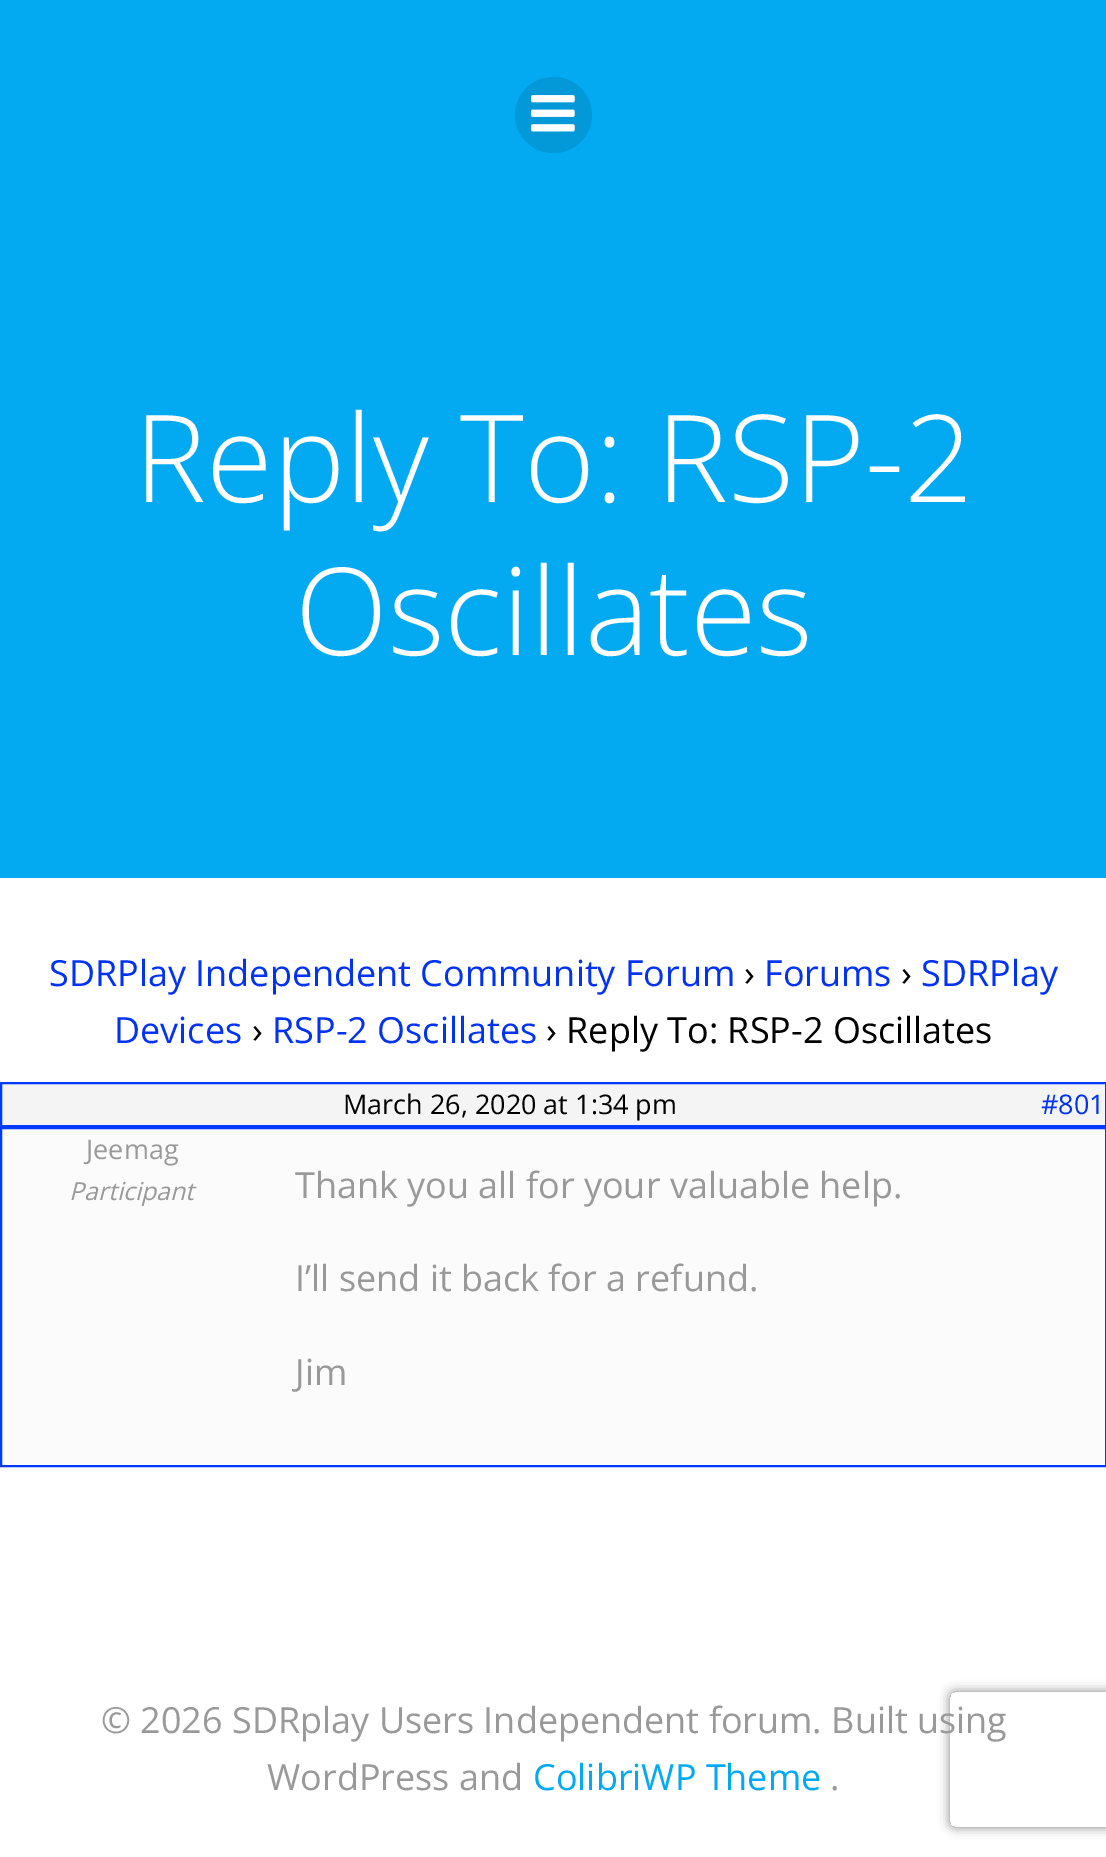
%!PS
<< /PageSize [1106 1857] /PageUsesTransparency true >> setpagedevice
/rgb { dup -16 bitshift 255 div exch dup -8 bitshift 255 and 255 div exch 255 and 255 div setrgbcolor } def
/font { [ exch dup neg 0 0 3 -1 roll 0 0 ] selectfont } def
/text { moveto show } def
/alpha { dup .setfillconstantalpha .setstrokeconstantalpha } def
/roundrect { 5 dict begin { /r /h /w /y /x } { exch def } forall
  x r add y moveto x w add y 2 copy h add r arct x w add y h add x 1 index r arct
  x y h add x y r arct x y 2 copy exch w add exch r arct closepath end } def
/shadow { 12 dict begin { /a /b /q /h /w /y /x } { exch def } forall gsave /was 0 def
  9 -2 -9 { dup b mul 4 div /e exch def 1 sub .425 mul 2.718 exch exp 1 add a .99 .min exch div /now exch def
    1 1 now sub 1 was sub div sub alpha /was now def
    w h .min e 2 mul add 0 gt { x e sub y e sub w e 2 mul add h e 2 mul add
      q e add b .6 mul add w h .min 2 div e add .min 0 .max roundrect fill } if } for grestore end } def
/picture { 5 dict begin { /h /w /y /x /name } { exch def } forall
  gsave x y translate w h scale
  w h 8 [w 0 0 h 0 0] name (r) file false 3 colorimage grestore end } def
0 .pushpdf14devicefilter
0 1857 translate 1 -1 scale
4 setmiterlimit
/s1 { /OpenSans-Light 121.5 font 16#FFFFFF rgb } def
/s2 { /OpenSans-Regular 36 font 16#0232F4 rgb } def
/s3 { /OpenSans-Regular 36 font 16#000000 rgb } def
/s4 { /OpenSans-Regular 27 font 16#000000 rgb } def
/s5 { /OpenSans-Regular 27 font 16#0232F4 rgb } def
/s6 { /OpenSans-Regular 27 font 16#999999 rgb } def
/s7 { /OpenSans-Italic 24.75 font 16#999999 rgb } def
/s8 { /OpenSans-Regular 36 font 16#999999 rgb } def
/s9 { /OpenSans-Regular 36 font 16#03A9F4 rgb } def
16#FFFFFF rgb
0 0 1106 1857 rectfill
16#03AAF1 rgb
0 0 1106 878 rectfill
16#0399D9 rgb
515 77 77 76 38 roundrect fill
(pic1.raw) 531 95 44 37 picture
s1
(Reply To: RSP-2) 134 502 text
(Oscillates) 295 655 text
s2
(SDRPlay Independent Community Forum) 49 986 text
s3
(›) 744 986 text
s2
(Forums) 764 986 text
s3
(›) 901 986 text
s2
(SDRPlay) 921 986 text
(Devices) 114 1043 text
s3
(›) 252 1043 text
s2
(RSP-2 Oscillates) 272 1043 text
s3
(› Reply To: RSP-2 Oscillates) 546 1043 text
16#F4F4F4 rgb
1 1083 moveto 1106 1083 lineto 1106 1126 lineto 1 1126 lineto closepath gsave fill grestore
16#003AFC rgb
2 setlinewidth
stroke
s4
(March 26, 2020 at 1:34 pm) 343 1114 text
s5
(#801) 1041 1114 text
16#FBFBFB rgb
1 1128 moveto 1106 1128 lineto 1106 1466 lineto 1 1466 lineto closepath gsave fill grestore
16#003AFC rgb
stroke
s6
(Jeemag) 86 1159 text
s7
(Participant) 69 1200 text
s8
(Thank you all for your valuable help.) 295 1198 text
(I’ll send it back for a refund.) 295 1291 text
(Jim) 295 1385 text
gsave
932 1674 moveto 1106 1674 lineto 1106 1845 lineto 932 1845 lineto closepath 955 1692 moveto 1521 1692 lineto 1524 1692 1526 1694 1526 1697 curveto 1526 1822 lineto 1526 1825 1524 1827 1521 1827 curveto 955 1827 lineto 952 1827 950 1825 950 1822 curveto 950 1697 lineto 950 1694 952 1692 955 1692 curveto closepath eoclip newpath
16#808080 rgb
950 1692 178 135 5 5.5 1 shadow
grestore
(© 2026 SDRplay Users Independent forum. Built using) 101 1733 text
(WordPress and) 267 1790 text
s9
(ColibriWP Theme) 533 1790 text
s8
(.) 830 1790 text
.poppdf14devicefilter showpage
